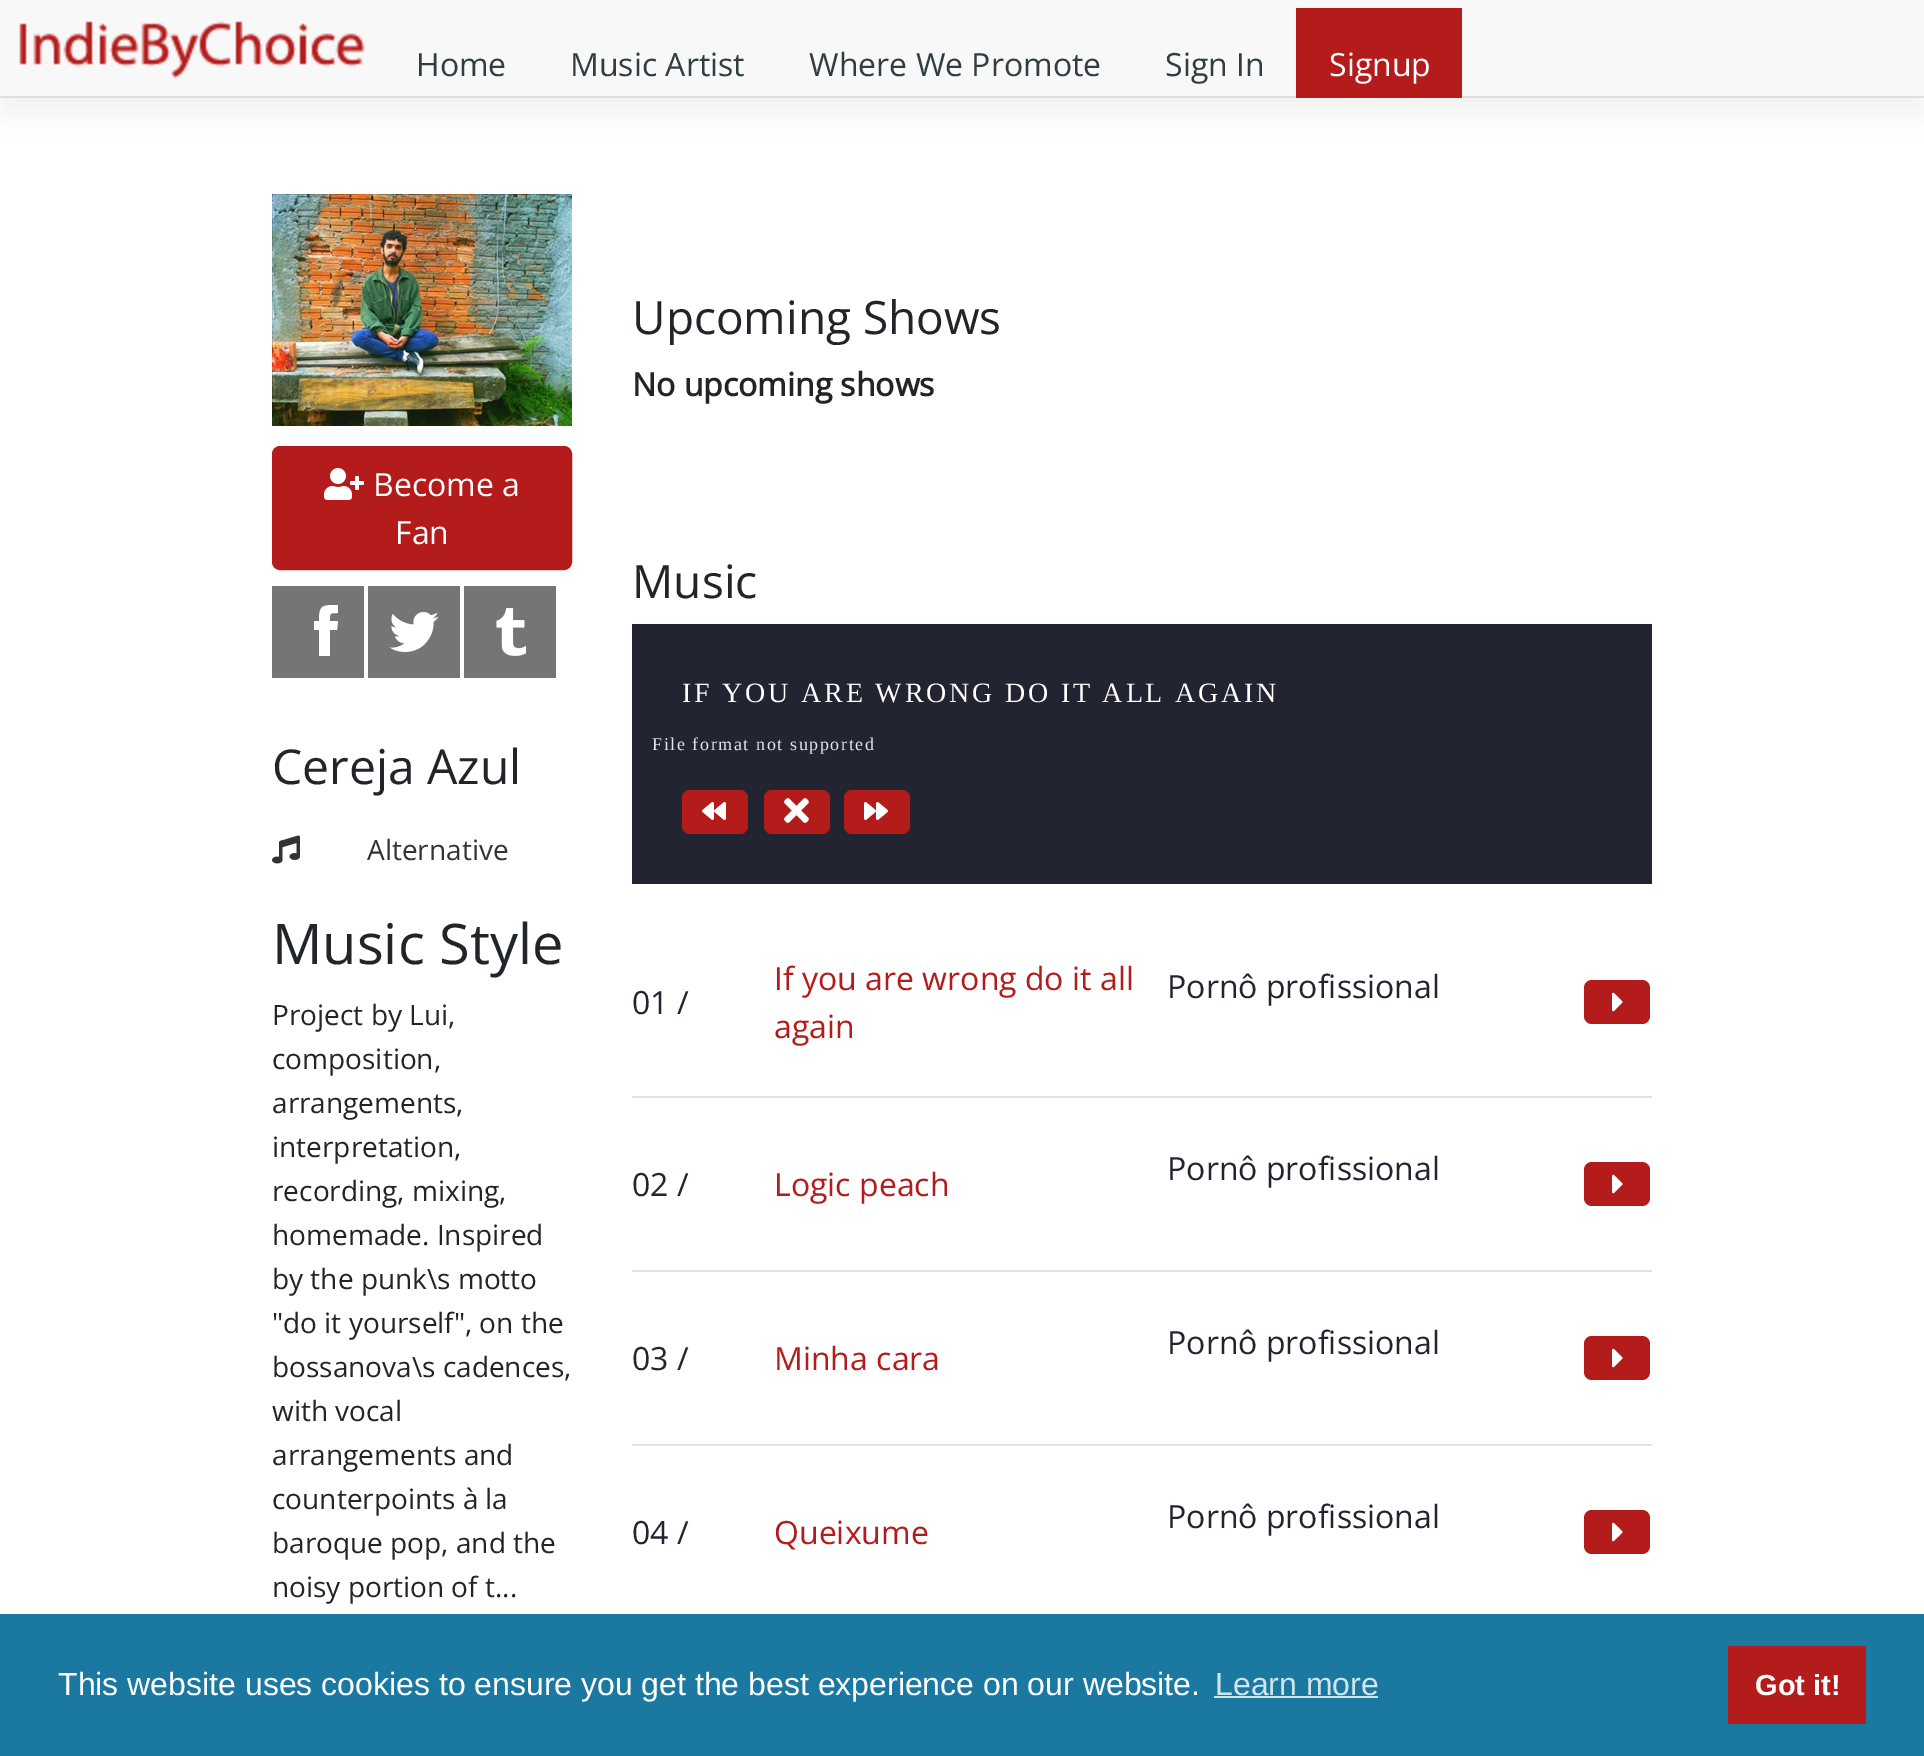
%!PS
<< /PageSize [1924 1756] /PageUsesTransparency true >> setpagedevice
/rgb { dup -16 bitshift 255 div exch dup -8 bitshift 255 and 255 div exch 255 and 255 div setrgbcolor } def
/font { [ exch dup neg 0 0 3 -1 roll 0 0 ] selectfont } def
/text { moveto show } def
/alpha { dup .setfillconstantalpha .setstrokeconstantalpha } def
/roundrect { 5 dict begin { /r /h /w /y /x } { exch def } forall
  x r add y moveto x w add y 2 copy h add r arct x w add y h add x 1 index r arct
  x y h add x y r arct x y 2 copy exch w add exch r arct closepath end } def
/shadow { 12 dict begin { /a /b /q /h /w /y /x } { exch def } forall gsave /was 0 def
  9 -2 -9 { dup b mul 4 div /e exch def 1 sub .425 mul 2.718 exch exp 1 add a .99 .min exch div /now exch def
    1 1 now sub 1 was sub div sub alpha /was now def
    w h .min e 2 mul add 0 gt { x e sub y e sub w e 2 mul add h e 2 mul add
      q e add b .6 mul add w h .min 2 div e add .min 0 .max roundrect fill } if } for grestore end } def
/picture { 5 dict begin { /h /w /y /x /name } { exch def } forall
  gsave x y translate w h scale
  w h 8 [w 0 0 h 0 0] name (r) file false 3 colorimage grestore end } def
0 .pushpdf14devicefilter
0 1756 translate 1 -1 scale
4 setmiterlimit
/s1 { /OpenSans-Regular 32 font 16#313D42 rgb } def
/s2 { /OpenSans-Regular 32 font 16#FFFFFF rgb } def
/s3 { /OpenSans-Regular 48 font 16#212529 rgb } def
/s4 { /OpenSans-Regular 28 font 16#333333 rgb } def
/s5 { /OpenSans-Regular 56 font 16#212529 rgb } def
/s6 { /OpenSans-Regular 28 font 16#212529 rgb } def
/s7 { /OpenSans-Regular 46 font 16#212529 rgb } def
/s8 { /OpenSans-Bold 32 font 16#212529 rgb } def
/s9 { /OpenSans-Regular 32 font 16#222431 rgb } def
/s10 { /OpenSans-Regular 32 font 16#B41B1B rgb } def
/s11 { /LiberationSans-Regular 32 font 16#FFFFFF rgb } def
/s12 { /LiberationSans-Regular 32 font 16#D1E4EC rgb } def
/s13 { /LiberationSans-Bold 29 font 16#FFFFFF rgb } def
16#FFFFFF rgb
0 0 1924 1756 rectfill
16#000000 rgb
0 16 1924 98 0 16 0.05 shadow
16#F8F8F8 rgb
0 0 1924 96 rectfill
16#DFDFDF rgb
0 96 1924 2 rectfill
(pic1.raw) 19 21 346 58 picture
s1
(Home) 416 76 text
(Music Artist) 570 76 text
(Where We Promote) 809 76 text
(Sign In) 1165 76 text
16#B41B1B rgb
1296 8 166 90 rectfill
s2
(Signup) 1329 76 text
(pic2.raw) 272 194 300 232 picture
16#B41B1B rgb
273 447 298 122 7 roundrect gsave fill grestore
2 setlinewidth
stroke
(pic3.raw) 324 468 40 32 picture
s2
(Become a) 373 496 text
(Fan) 395 544 text
16#757575 rgb
272 586 92 92 rectfill
16#FFFFFF rgb
330 621 moveto 330 613 329 613 338 613 curveto 338 605 lineto 322 605 319 605 319 621 curveto 314 621 lineto 314 630 lineto 319 630 lineto 319 656 lineto 330 656 lineto 330 630 lineto 337 630 lineto 338 621 lineto closepath fill
16#757575 rgb
368 586 92 92 rectfill
(pic4.raw) 389 612 50 40 picture
464 586 92 92 rectfill
(pic5.raw) 496 608 30 48 picture
s3
(Cereja Azul) 272 784 text
(pic6.raw) 272 835 28 29 picture
s4
(Alternative) 367 860 text
s5
(Music Style) 272 964 text
s6
(Project by Lui,) 272 1025 text
(composition,) 272 1069 text
(arrangements,) 272 1113 text
(interpretation,) 272 1157 text
(recording, mixing,) 272 1201 text
(homemade. Inspired) 272 1245 text
(by the punk\\s motto) 272 1289 text
("do it yourself", on the) 272 1333 text
(bossanova\\s cadences,) 272 1377 text
(with vocal) 272 1421 text
(arrangements and) 272 1465 text
(counterpoints à la) 272 1509 text
(baroque pop, and the) 272 1553 text
(noisy portion of t...) 272 1597 text
s7
(Upcoming Shows) 632 334 text
s8
(No upcoming shows) 632 396 text
s7
(Music) 632 598 text
16#222431 rgb
632 624 1020 260 rectfill
/LiberationSerif-Regular 28 font
16#FFFFFF rgb
682 702 moveto 2.8 0 (IF YOU ARE WRONG DO IT ALL AGAIN) ashow
/LiberationSerif-Regular 18 font
16#E5E5E5 rgb
652 750 moveto 1.6 0 (File format not supported) ashow
16#B41B1B rgb
682 790 66 44 8 roundrect fill
(pic7.raw) 702 802 24 18 picture
844 790 66 44 8 roundrect fill
(pic8.raw) 864 802 24 18 picture
764 790 66 44 8 roundrect fill
(pic9.raw) 784 798 25 25 picture
16#E3E3E3 rgb
632 1096 1020 2 rectfill
s9
(01 /) 632 1014 text
s10
(If you are wrong do it all) 774 990 text
(again) 774 1038 text
s9
(Pornô profissional) 1167 998 text
16#B41B1B rgb
1584 980 66 44 8 roundrect fill
(pic10.raw) 1612 992 11 20 picture
16#E3E3E3 rgb
632 1270 1020 2 rectfill
s9
(02 /) 632 1196 text
s10
(Logic peach) 774 1196 text
s9
(Pornô profissional) 1167 1180 text
16#B41B1B rgb
1584 1162 66 44 8 roundrect fill
(pic10.raw) 1612 1174 11 20 picture
16#E3E3E3 rgb
632 1444 1020 2 rectfill
s9
(03 /) 632 1370 text
s10
(Minha cara) 774 1370 text
s9
(Pornô profissional) 1167 1354 text
16#B41B1B rgb
1584 1336 66 44 8 roundrect fill
(pic10.raw) 1612 1348 11 20 picture
s9
(04 /) 632 1544 text
s10
(Queixume) 774 1544 text
s9
(Pornô profissional) 1167 1528 text
16#B41B1B rgb
1584 1510 66 44 8 roundrect fill
(pic10.raw) 1612 1522 11 20 picture
16#1B79A1 rgb
0 1614 1924 142 rectfill
s11
(This website uses cookies to ensure you get the best experience on our website.) 58 1695 text
s12
(Learn more) 1215 1695 text
1214 1696 164 2 rectfill
16#B41B1B rgb
1728 1646 138 78 rectfill
s13
(Got it!) 1755 1695 text
.poppdf14devicefilter showpage
